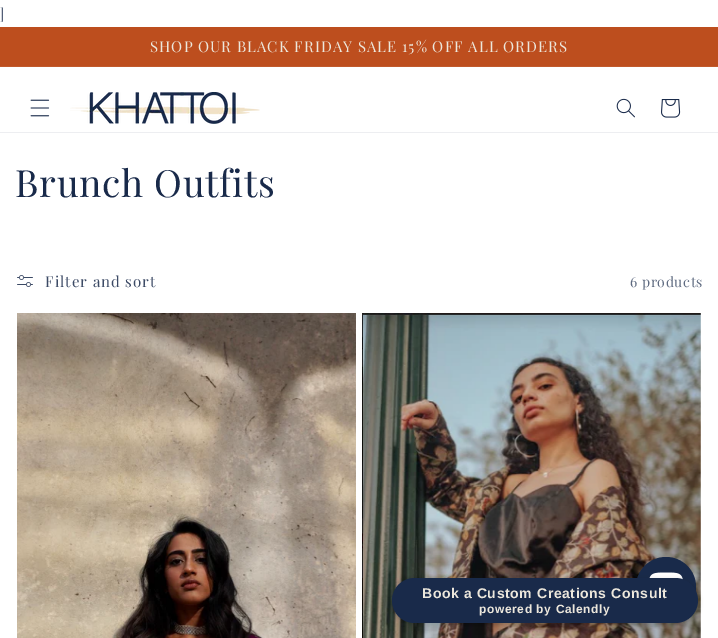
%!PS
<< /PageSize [718 638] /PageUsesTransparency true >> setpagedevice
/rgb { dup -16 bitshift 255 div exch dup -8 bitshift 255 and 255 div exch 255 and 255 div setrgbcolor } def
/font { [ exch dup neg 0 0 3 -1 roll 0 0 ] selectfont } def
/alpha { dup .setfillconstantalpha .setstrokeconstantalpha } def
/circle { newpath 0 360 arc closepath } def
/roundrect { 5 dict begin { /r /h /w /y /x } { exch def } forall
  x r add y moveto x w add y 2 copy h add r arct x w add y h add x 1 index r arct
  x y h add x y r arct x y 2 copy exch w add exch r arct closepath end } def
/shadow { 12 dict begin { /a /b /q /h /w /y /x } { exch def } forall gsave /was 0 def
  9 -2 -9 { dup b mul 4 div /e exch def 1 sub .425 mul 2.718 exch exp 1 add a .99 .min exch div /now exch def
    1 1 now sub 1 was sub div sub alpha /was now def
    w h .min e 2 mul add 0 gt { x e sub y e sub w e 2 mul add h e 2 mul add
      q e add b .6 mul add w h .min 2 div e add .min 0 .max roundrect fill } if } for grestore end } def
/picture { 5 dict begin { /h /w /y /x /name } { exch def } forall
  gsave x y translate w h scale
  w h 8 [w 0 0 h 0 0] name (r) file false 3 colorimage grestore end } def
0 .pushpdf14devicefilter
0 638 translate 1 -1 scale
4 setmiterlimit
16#FFFFFF rgb
0 0 718 638 rectfill
/PlayfairDisplay-Regular 15 font
16#535F77 rgb
0 19 moveto 0.6 0 (]) ashow
16#BD4E1E rgb
0 27 718 39 rectfill
16#C15A2D rgb
0 66 718 1 rectfill
16#ECE7DC rgb
150 52 moveto 1 0 (SHOP OUR BLACK FRIDAY SALE 15% OFF ALL ORDERS) ashow
16#EDEEF1 rgb
0 132 718 1 rectfill
(pic1.raw) 30 99 20 18 picture
(pic2.raw) 70 92 190 32 picture
(pic3.raw) 616 98 19 20 picture
(pic4.raw) 661 99 20 19 picture
/PlayfairDisplay-Regular 37.5 font
16#192A4A rgb
15 197 moveto 0.75 0 (Brunch Outfits) ashow
(pic5.raw) 17 275 16 12 picture
/PlayfairDisplay-Regular 15 font
16#3C4A65 rgb
45 287 moveto 1 0 (Filter and sort) ashow
/PlayfairDisplay-Regular 14 font
16#5E6A80 rgb
630 287 moveto 0.6 0 (6 products) ashow
(pic6.raw) 17 313 339 325 picture
(pic7.raw) 362 313 339 325 picture
16#192A4A rgb
666 587 30 circle fill
(pic8.raw) 649 572 34 8 picture
16#000000 rgb
392 580 306 45 22.5 2.5 0.25 shadow
16#192A4A rgb
392 578 306 45 22.5 roundrect fill
/LiberationSans-Bold 14 font
16#ECE7DC rgb
422 598 moveto 0.6 0 (Book a Custom Creations Consult) ashow
/LiberationSans-Bold 12 font
479 613 moveto 0.6 0 (powered by Calendly) ashow
.poppdf14devicefilter showpage
